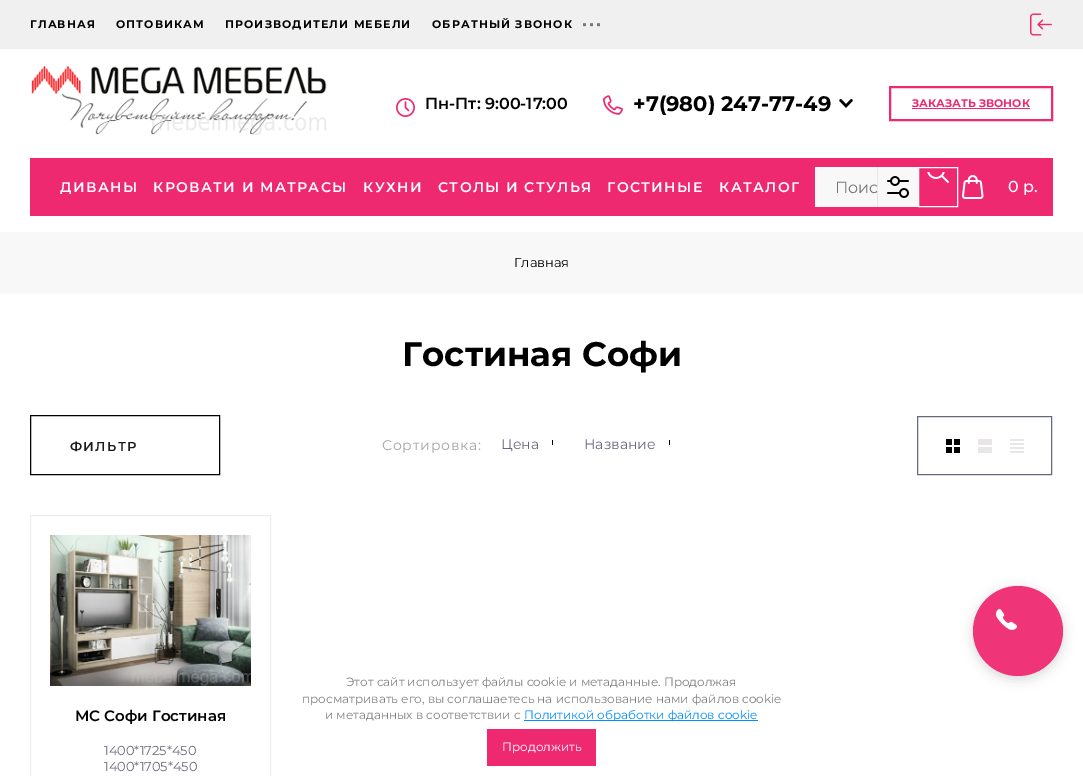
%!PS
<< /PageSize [1083 776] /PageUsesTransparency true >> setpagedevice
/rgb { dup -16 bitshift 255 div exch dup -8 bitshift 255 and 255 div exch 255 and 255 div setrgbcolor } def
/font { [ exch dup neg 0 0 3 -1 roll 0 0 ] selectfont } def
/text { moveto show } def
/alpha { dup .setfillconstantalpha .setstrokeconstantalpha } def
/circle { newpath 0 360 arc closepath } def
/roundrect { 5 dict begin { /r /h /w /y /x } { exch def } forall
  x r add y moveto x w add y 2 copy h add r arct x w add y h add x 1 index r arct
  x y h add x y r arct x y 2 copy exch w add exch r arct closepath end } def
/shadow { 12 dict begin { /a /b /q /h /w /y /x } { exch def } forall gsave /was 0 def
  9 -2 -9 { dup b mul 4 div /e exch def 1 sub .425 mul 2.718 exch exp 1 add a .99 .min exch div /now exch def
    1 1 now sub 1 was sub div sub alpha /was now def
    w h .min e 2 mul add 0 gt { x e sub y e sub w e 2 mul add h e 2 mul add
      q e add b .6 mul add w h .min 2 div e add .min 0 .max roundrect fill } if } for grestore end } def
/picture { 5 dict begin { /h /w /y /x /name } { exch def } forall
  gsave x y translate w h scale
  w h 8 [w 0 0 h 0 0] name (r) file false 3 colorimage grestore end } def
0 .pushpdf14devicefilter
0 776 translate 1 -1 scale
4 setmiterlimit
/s1 { /Montserrat-SemiBold 16 font 16#000000 rgb } def
/s2 { /Montserrat-Bold 21 font 16#000000 rgb } def
/s3 { /Montserrat-Bold 11 font 16#EE2970 rgb } def
/s4 { /Montserrat-Regular 16 font 16#757575 rgb } def
/s5 { /Montserrat-Medium 16 font 16#FFFFFF rgb } def
/s6 { /Montserrat-Regular 13 font 16#000000 rgb } def
/s7 { /Montserrat-Bold 34 font 16#000000 rgb } def
/s8 { /Montserrat-Regular 14 font 16#67697E rgb } def
/s9 { /Montserrat-SemiBold 15 font 16#000000 rgb } def
/s10 { /Montserrat-Regular 13 font 16#67697E rgb } def
/s11 { /Montserrat-Regular 12 font 16#808080 rgb } def
/s12 { /Montserrat-Regular 12 font 16#008EFC rgb } def
/s13 { /Montserrat-Regular 12 font 16#FFFFFF rgb } def
16#FFFFFF rgb
0 0 1083 776 rectfill
16#F0F0F0 rgb
0 0 1083 49 rectfill
/Montserrat-Bold 11 font
16#000000 rgb
30 28 moveto 1.1 0 (ГЛАВНАЯ) ashow
116 28 moveto 1.1 0 (ОПТОВИКАМ) ashow
225 28 moveto 1.1 0 (ПРОИЗВОДИТЕЛИ МЕБЕЛИ) ashow
432 28 moveto 1.1 0 (ОБРАТНЫЙ ЗВОНОК) ashow
(pic1.raw) 583 23 17 4 picture
(pic2.raw) 1030 13 22 23 picture
(pic3.raw) 31 65 296 70 picture
(pic4.raw) 396 98 19 19 picture
s1
(Пн-Пт: 9:00-17:00) 425 109 text
(pic5.raw) 603 95 20 20 picture
s2
(+7\(980\) 247-77-49) 633 111 text
(pic6.raw) 839 99 14 9 picture
16#EE2970 rgb
2 setlinewidth
890 87 162 33 rectstroke
s3
(ЗАКАЗАТЬ ЗВОНОК) 912 107 text
912 108 118 1 rectfill
30 158 1023 58 rectfill
/Montserrat-SemiBold 14 font
16#FFFFFF rgb
60 192 moveto 1.4 0 (ДИВАНЫ) ashow
153 192 moveto 1.4 0 (КРОВАТИ И МАТРАСЫ) ashow
363 192 moveto 1.4 0 (КУХНИ) ashow
438 192 moveto 1.4 0 (СТОЛЫ И СТУЛЬЯ) ashow
607 192 moveto 1.4 0 (ГОСТИНЫЕ) ashow
719 192 moveto 1.4 0 (КАТАЛОГ) ashow
16#F8F8F8 rgb
815 167 103 40 rectfill
s4
(Поис) 835 193 text
16#E6E6E6 rgb
877 167 1 40 rectfill
(pic7.raw) 887 176 22 22 picture
16#FFFFFF rgb
1 setlinewidth
918.5 167.5 39 39 rectstroke
(pic8.raw) 927 172 22 11 picture
(pic9.raw) 962 175 22 24 picture
s5
(0 р.) 1008 192 text
16#F8F8F8 rgb
0 232 1083 62 rectfill
s6
(Главная) 514 267 text
s7
(Гостиная Софи) 402 366 text
30.5 415.5 189 59 rectstroke
/Montserrat-SemiBold 13 font
16#1B1B1B rgb
70 451 moveto 1.25 0 (ФИЛЬТР) ashow
/Montserrat-Regular 14 font
16#A4A4A4 rgb
382 450 moveto 0.75 0 (Сортировка:) ashow
s8
(Цена) 501 449 text
16#000000 rgb
552 440 1 5 rectfill
s8
(Название) 584 449 text
16#000000 rgb
669 440 1 5 rectfill
16#67697E rgb
917.5 416.5 134 58 rectstroke
(pic10.raw) 946 439 14 14 picture
(pic11.raw) 978 439 14 14 picture
(pic12.raw) 1010 439 14 14 picture
16#EDEDF3 rgb
30.5 515.5 240 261 rectstroke
(pic13.raw) 50 535 201 151 picture
s9
(МС Софи Гостиная) 75 721 text
s10
(1400*1725*450) 104 755 text
(1400*1705*450) 104 771 text
gsave
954 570 moveto 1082 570 lineto 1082 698 lineto 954 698 lineto closepath 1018 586 moveto 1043 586 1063 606 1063 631 curveto 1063 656 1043 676 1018 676 curveto 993 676 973 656 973 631 curveto 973 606 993 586 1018 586 curveto closepath eoclip newpath
16#000000 rgb
973 589 90 90 45 6 0.15 shadow
grestore
0.95 alpha
16#EE2970 rgb
1018 631 45 circle fill
1 alpha
(pic14.raw) 996 609 21 21 picture
s11
(Этот сайт использует файлы cookie и метаданные. Продолжая) 346 686 text
(просматривать его, вы соглашаетесь на использование нами файлов cookie) 302 703 text
(и метаданных в соответствии с) 325 719 text
16#008EFC rgb
524 720 234 1 rectfill
(Политикой обработки файлов cookie) 524 719 text
16#EE2970 rgb
487 729 109 37 rectfill
s13
(Продолжить) 502 751 text
.poppdf14devicefilter showpage
